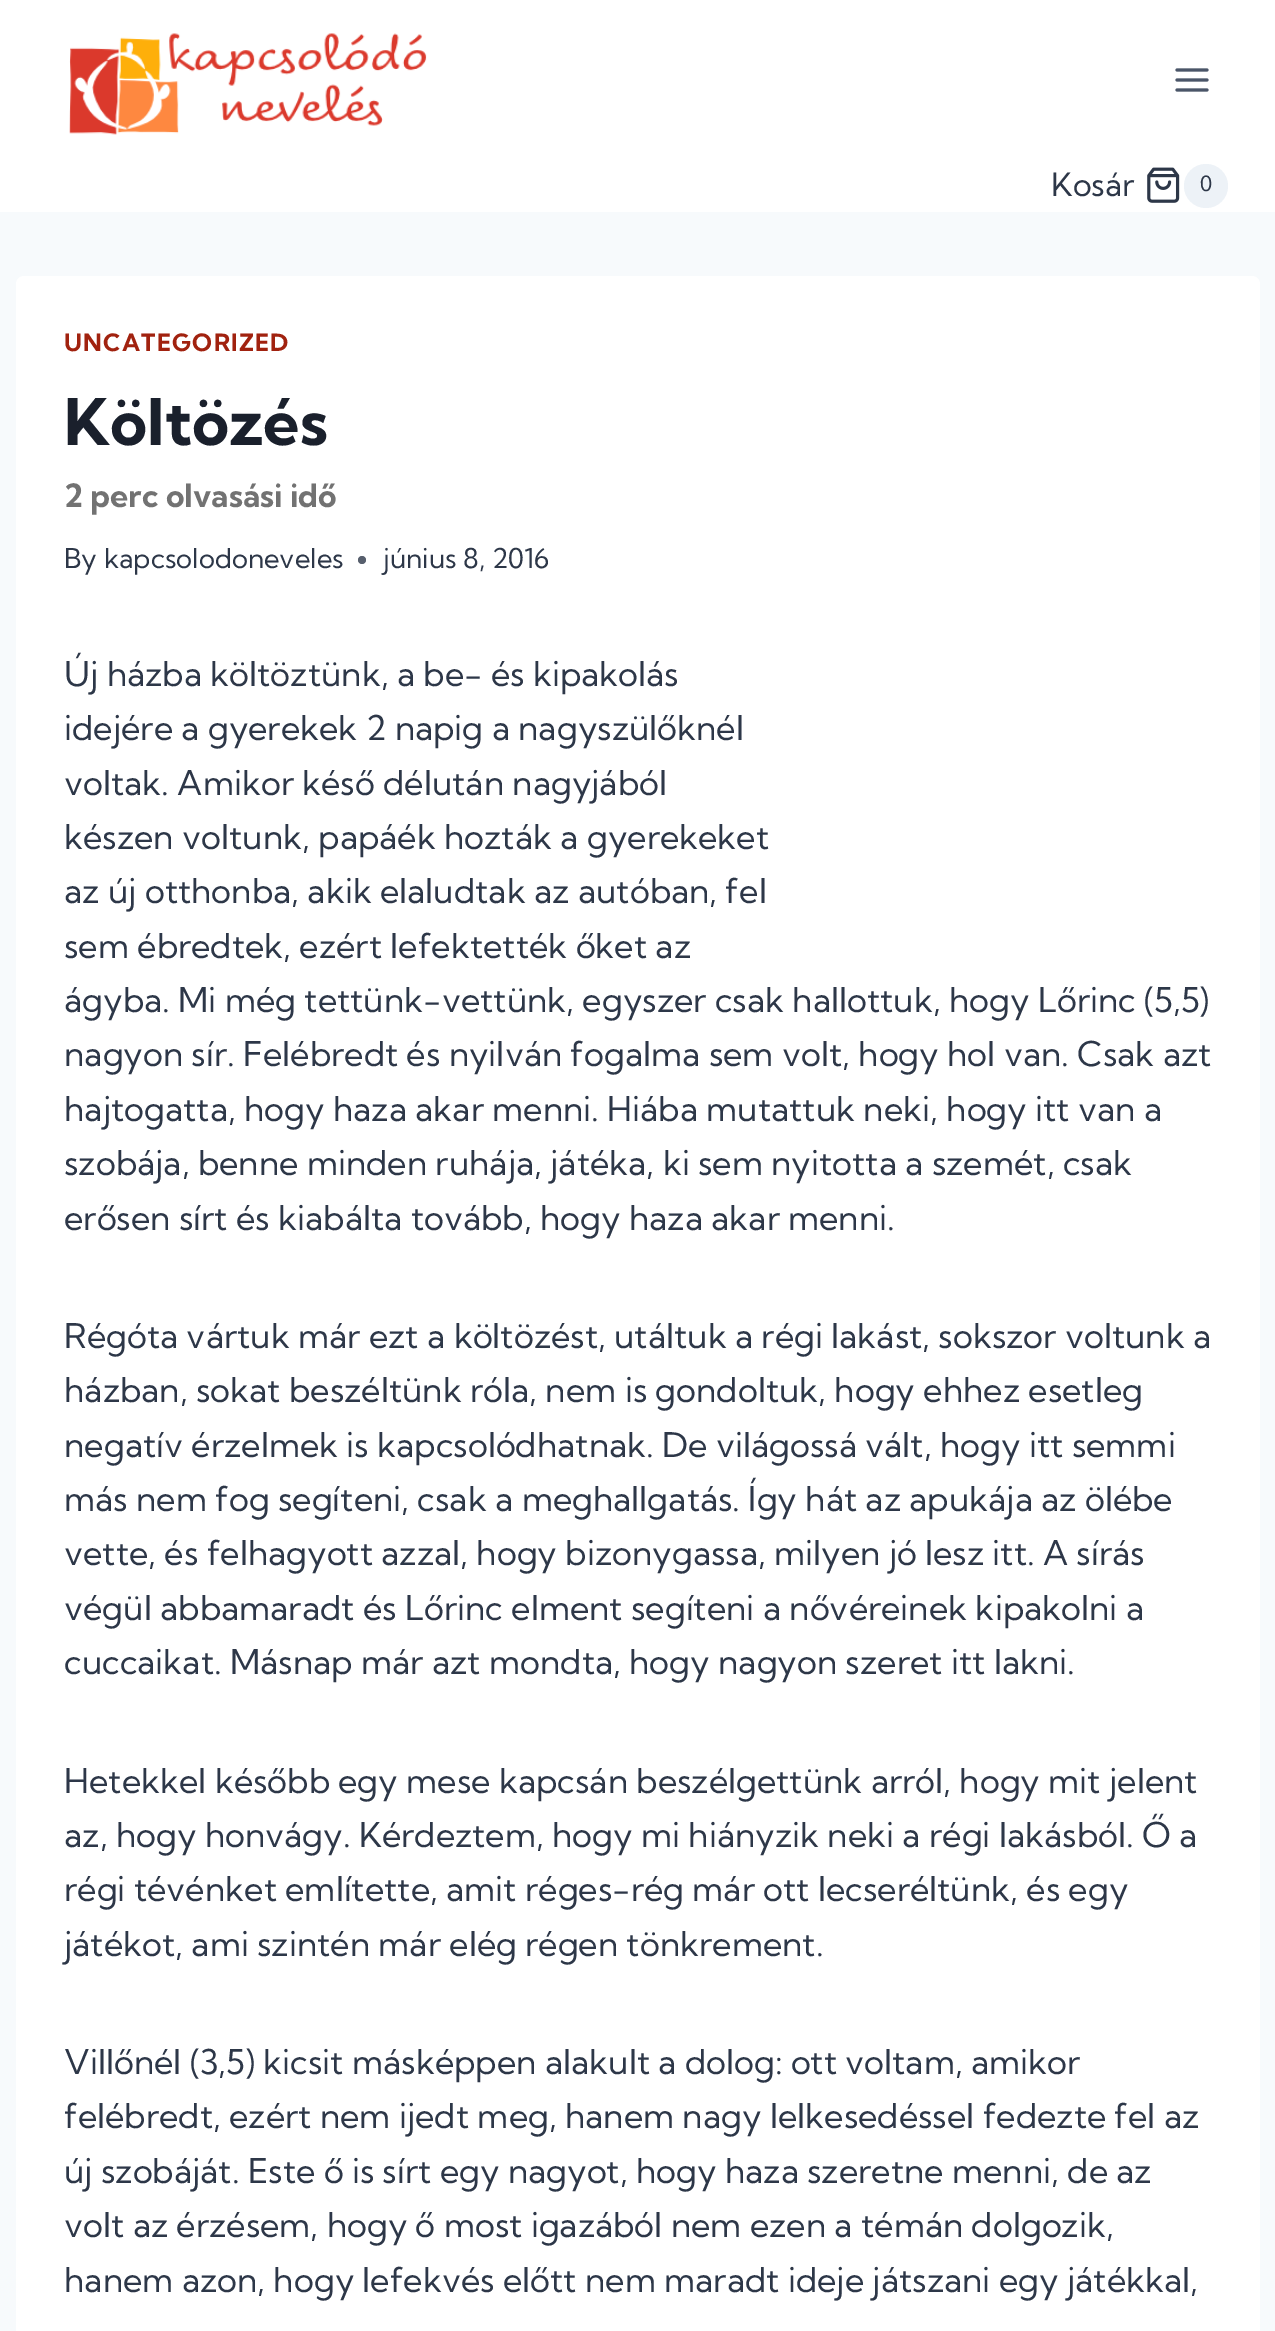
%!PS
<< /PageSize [1275 2331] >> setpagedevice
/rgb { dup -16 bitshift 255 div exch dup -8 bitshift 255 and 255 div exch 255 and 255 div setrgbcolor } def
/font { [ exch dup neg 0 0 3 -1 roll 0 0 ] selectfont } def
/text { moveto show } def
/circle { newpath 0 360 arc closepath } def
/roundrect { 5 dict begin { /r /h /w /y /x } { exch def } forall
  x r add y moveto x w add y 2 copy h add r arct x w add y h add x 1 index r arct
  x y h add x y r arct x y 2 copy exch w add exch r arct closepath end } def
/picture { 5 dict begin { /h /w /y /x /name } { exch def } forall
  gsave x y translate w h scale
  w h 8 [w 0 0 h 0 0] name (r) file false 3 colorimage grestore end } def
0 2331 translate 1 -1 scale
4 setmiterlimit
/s1 { /KumbhSans-Regular 32 font 16#2D3748 rgb } def
/s2 { /KumbhSans-Regular 21 font 16#2D3748 rgb } def
/s3 { /KumbhSans-Bold 64 font 16#1A202C rgb } def
/s4 { /KumbhSans-Bold 32 font 16#727272 rgb } def
/s5 { /KumbhSans-Regular 27.25 font 16#2D3748 rgb } def
/s6 { /KumbhSans-Regular 34 font 16#2D3748 rgb } def
16#F7FAFC rgb
0 0 1275 2331 rectfill
16#FFFFFF rgb
0 0 1275 212 rectfill
(pic1.raw) 69 33 358 102 picture
(pic2.raw) 1175 68 34 24 picture
s1
(Kosár) 1051 196 text
(pic3.raw) 1147 167 33 36 picture
16#EDF2F7 rgb
1206 186 22 circle fill
s2
(0) 1200 191 text
16#FFFFFF rgb
16 276 1244 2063 8 roundrect fill
/KumbhSans-Bold 23.75 font
16#A1220F rgb
64 351 moveto 1.25 0 (UNCATEGORIZED) ashow
s3
(Költözés) 64 445 text
s4
(2 perc olvasási idő) 64 507 text
s5
(By kapcsolodoneveles) 64 568 text
16#575F6D rgb
362 560 4 circle fill
s5
(június 8, 2016) 383 568 text
s6
(Új házba költöztünk, a be- és kipakolás) 64 686 text
(idejére a gyerekek 2 napig a nagyszülőknél) 64 740 text
(voltak. Amikor késő délután nagyjából) 64 795 text
(készen voltunk, papáék hozták a gyerekeket) 64 849 text
(az új otthonba, akik elaludtak az autóban, fel) 64 903 text
(sem ébredtek, ezért lefektették őket az) 64 958 text
(ágyba. Mi még tettünk-vettünk, egyszer csak hallottuk, hogy Lőrinc \(5,5\)) 64 1012 text
(nagyon sír. Felébredt és nyilván fogalma sem volt, hogy hol van. Csak azt) 64 1066 text
(hajtogatta, hogy haza akar menni. Hiába mutattuk neki, hogy itt van a) 64 1121 text
(szobája, benne minden ruhája, játéka, ki sem nyitotta a szemét, csak) 64 1175 text
(erősen sírt és kiabálta tovább, hogy haza akar menni.) 64 1230 text
(Régóta vártuk már ezt a költözést, utáltuk a régi lakást, sokszor voltunk a) 64 1348 text
(házban, sokat beszéltünk róla, nem is gondoltuk, hogy ehhez esetleg) 64 1402 text
(negatív érzelmek is kapcsolódhatnak. De világossá vált, hogy itt semmi) 64 1457 text
(más nem fog segíteni, csak a meghallgatás. Így hát az apukája az ölébe) 64 1511 text
(vette, és felhagyott azzal, hogy bizonygassa, milyen jó lesz itt. A sírás) 64 1565 text
(végül abbamaradt és Lőrinc elment segíteni a nővéreinek kipakolni a) 64 1620 text
(cuccaikat. Másnap már azt mondta, hogy nagyon szeret itt lakni.) 64 1674 text
(Hetekkel később egy mese kapcsán beszélgettünk arról, hogy mit jelent) 64 1793 text
(az, hogy honvágy. Kérdeztem, hogy mi hiányzik neki a régi lakásból. Ő a) 64 1847 text
(régi tévénket említette, amit réges-rég már ott lecseréltünk, és egy) 64 1901 text
(játékot, ami szintén már elég régen tönkrement.) 64 1956 text
(Villőnél \(3,5\) kicsit másképpen alakult a dolog: ott voltam, amikor) 64 2074 text
(felébredt, ezért nem ijedt meg, hanem nagy lelkesedéssel fedezte fel az) 64 2128 text
(új szobáját. Este ő is sírt egy nagyot, hogy haza szeretne menni, de az) 64 2183 text
(volt az érzésem, hogy ő most igazából nem ezen a témán dolgozik,) 64 2237 text
(hanem azon, hogy lefekvés előtt nem maradt ideje játszani egy játékkal,) 64 2292 text
showpage
